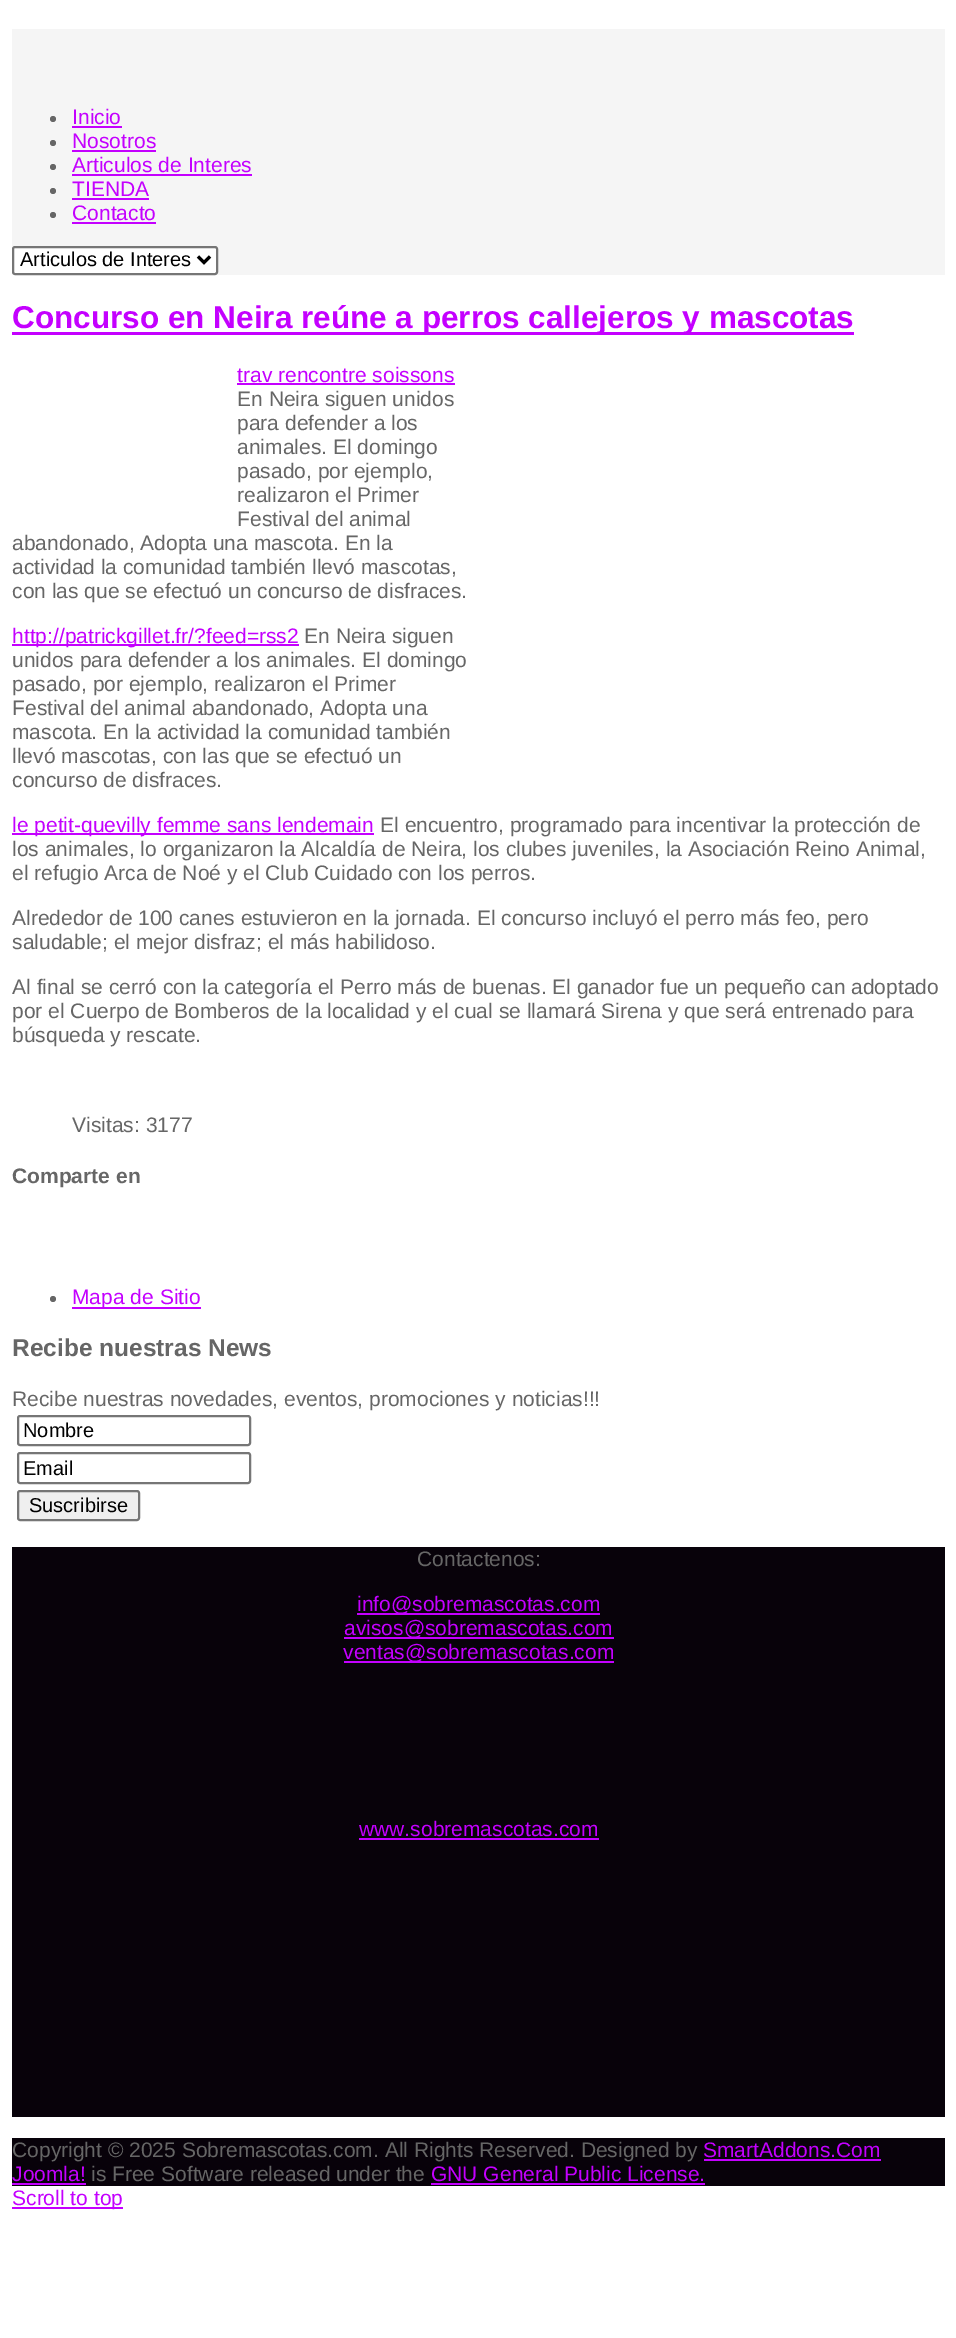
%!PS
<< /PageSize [956 2338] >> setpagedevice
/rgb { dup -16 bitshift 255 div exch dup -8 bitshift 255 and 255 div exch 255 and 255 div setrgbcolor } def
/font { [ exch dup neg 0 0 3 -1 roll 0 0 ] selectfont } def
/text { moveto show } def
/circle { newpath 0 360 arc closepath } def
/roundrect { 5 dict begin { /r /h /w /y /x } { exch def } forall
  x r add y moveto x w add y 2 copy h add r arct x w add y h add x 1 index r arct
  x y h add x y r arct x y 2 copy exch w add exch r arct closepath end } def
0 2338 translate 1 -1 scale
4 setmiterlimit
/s1 { /LiberationSans-Regular 21 font 16#C400FF rgb } def
/s2 { /LiberationSans-Regular 20 font 16#000000 rgb } def
/s3 { /LiberationSans-Bold 31.5 font 16#C400FF rgb } def
/s4 { /LiberationSans-Regular 21 font 16#666666 rgb } def
/s5 { /LiberationSans-Bold 21 font 16#666666 rgb } def
/s6 { /LiberationSans-Bold 24.5 font 16#666666 rgb } def
16#FFFFFF rgb
0 0 956 2338 rectfill
16#F5F5F5 rgb
12 29 933 246 rectfill
16#666666 rgb
53 119 3 circle fill
s1
(Inicio) 72 124 text
72 126 50 2 rectfill
16#666666 rgb
53 143 3 circle fill
s1
(Nosotros) 72 148 text
72 150 84 2 rectfill
16#666666 rgb
53 167 3 circle fill
s1
(Articulos de Interes) 72 172 text
72 174 180 2 rectfill
16#666666 rgb
53 191 3 circle fill
s1
(TIENDA) 72 196 text
72 198 77 2 rectfill
16#666666 rgb
53 215 3 circle fill
s1
(Contacto) 72 220 text
72 222 84 2 rectfill
16#FFFFFF rgb
13 247 204 27 2 roundrect gsave fill grestore
16#767676 rgb
2 setlinewidth
stroke
16#000000 rgb
3 setlinewidth
198 256.5 moveto 204 262.5 lineto 210 256.5 lineto stroke
s2
(Articulos de Interes) 20 266 text
16#C400FF rgb
12 332 842 3 rectfill
s3
(Concurso en Neira reúne a perros callejeros y mascotas) 12 328 text
s1
(trav rencontre soissons) 237 382 text
237 383 218 2 rectfill
s4
(En Neira siguen unidos) 237 406 text
(para defender a los) 237 430 text
(animales. El domingo) 237 454 text
(pasado, por ejemplo,) 237 478 text
(realizaron el Primer) 237 502 text
(Festival del animal) 237 526 text
(abandonado, Adopta una mascota. En la) 12 550 text
(actividad la comunidad también llevó mascotas,) 12 574 text
(con las que se efectuó un concurso de disfraces.) 12 598 text
16#C400FF rgb
12 644 287 2 rectfill
(http://patrickgillet.fr/?feed=rss2) 12 643 text
s4
(En Neira siguen) 304 643 text
(unidos para defender a los animales. El domingo) 12 667 text
(pasado, por ejemplo, realizaron el Primer) 12 691 text
(Festival del animal abandonado, Adopta una) 12 715 text
(mascota. En la actividad la comunidad también) 12 739 text
(llevó mascotas, con las que se efectuó un) 12 763 text
(concurso de disfraces.) 12 787 text
16#C400FF rgb
12 833 362 2 rectfill
(le petit-quevilly femme sans lendemain) 12 832 text
s4
(El encuentro, programado para incentivar la protección de) 380 832 text
(los animales, lo organizaron la Alcaldía de Neira, los clubes juveniles, la Asociación Reino Animal,) 12 856 text
(el refugio Arca de Noé y el Club Cuidado con los perros.) 12 880 text
(Alrededor de 100 canes estuvieron en la jornada. El concurso incluyó el perro más feo, pero) 12 925 text
(saludable; el mejor disfraz; el más habilidoso.) 12 949 text
(Al final se cerró con la categoría el Perro más de buenas. El ganador fue un pequeño can adoptado) 12 994 text
(por el Cuerpo de Bomberos de la localidad y el cual se llamará Sirena y que será entrenado para) 12 1018 text
(búsqueda y rescate.) 12 1042 text
(Visitas: 3177) 72 1132 text
s5
(Comparte en) 12 1183 text
53 1299 3 circle fill
16#C400FF rgb
72 1307 129 2 rectfill
s1
(Mapa de Sitio) 72 1304 text
s6
(Recibe nuestras News) 12 1356 text
s4
(Recibe nuestras novedades, eventos, promociones y noticias!!!) 12 1406 text
16#767676 rgb
2 setlinewidth
18 1416 232 29 2 roundrect stroke
s2
(Nombre) 23 1437 text
16#767676 rgb
18 1453 232 30 2 roundrect stroke
s2
(Email) 23 1475 text
16#EFEFEF rgb
18 1491 121 29 2 roundrect gsave fill grestore
16#767676 rgb
stroke
s2
(Suscribirse) 29 1512 text
16#08020A rgb
12 1547 933 570 rectfill
s4
(Contactenos:) 417 1566 text
16#C400FF rgb
357 1613 243 2 rectfill
(info@sobremascotas.com) 357 1611 text
344 1637 270 2 rectfill
(avisos@sobremascotas.com) 344 1635 text
344 1661 270 2 rectfill
(ventas@sobremascotas.com) 343 1659 text
(www.sobremascotas.com) 359 1836 text
359 1838 240 2 rectfill
16#08020A rgb
12 2138 933 48 rectfill
s4
(Copyright © 2025 Sobremascotas.com. All Rights Reserved. Designed by) 12 2157 text
s1
(SmartAddons.Com) 703 2157 text
704 2159 177 2 rectfill
(Joomla!) 12 2181 text
12 2183 74 2 rectfill
s4
(is Free Software released under the) 91 2181 text
s1
(GNU General Public License.) 431 2181 text
431 2183 274 2 rectfill
12 2207 111 2 rectfill
(Scroll to top) 12 2205 text
showpage
